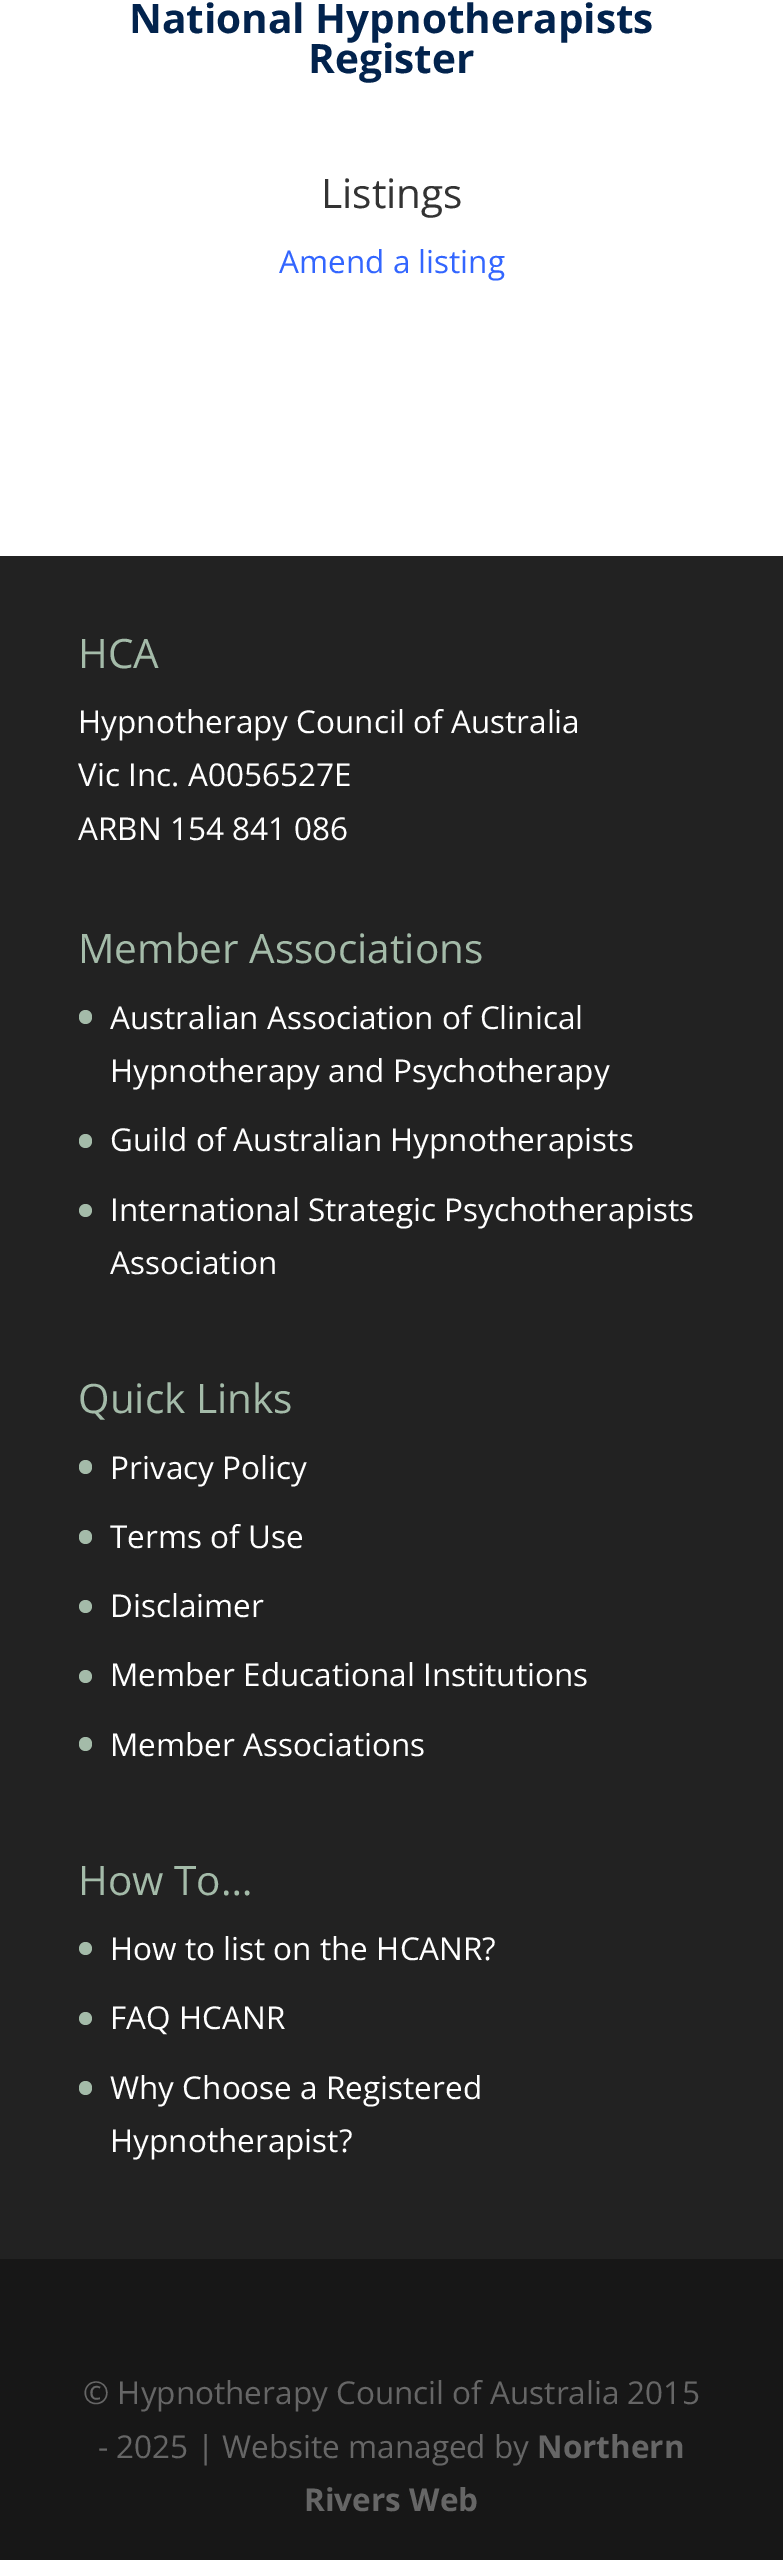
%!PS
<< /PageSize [783 2560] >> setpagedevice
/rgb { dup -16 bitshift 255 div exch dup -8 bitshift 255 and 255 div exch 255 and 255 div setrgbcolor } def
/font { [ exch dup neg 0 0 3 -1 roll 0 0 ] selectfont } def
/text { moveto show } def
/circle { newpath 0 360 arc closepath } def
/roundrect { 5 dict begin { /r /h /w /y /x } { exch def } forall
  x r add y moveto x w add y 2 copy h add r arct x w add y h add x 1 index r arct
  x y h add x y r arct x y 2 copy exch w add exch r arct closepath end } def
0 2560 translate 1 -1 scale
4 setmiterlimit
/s1 { /OpenSans-Bold 40.5 font 16#02234D rgb } def
/s2 { /OpenSans-Regular 40.5 font 16#333333 rgb } def
/s3 { /OpenSans-Regular 31.5 font 16#3366FF rgb } def
/s4 { /OpenSans-Regular 40.5 font 16#A4BBA9 rgb } def
/s5 { /OpenSans-Regular 31.5 font 16#FFFFFF rgb } def
/s6 { /OpenSans-Regular 31.5 font 16#666666 rgb } def
/s7 { /OpenSans-Bold 31.5 font 16#666666 rgb } def
16#FFFFFF rgb
0 0 783 2560 rectfill
s1
(National Hypnotherapists) 129 33 text
(Register) 308 73 text
s2
(Listings) 321 208 text
s3
(Amend a listing) 279 273 text
16#222222 rgb
0 556 783 1703 rectfill
s4
(HCA) 78 668 text
s5
(Hypnotherapy Council of Australia) 78 733 text
(Vic Inc. A0056527E) 78 786 text
(ARBN 154 841 086) 78 840 text
s4
(Member Associations) 78 963 text
79 1010 13 14 6.5 roundrect fill
s5
(Australian Association of Clinical) 110 1029 text
(Hypnotherapy and Psychotherapy) 110 1082 text
16#A4BBA9 rgb
79 1134 13 14 6.5 roundrect fill
s5
(Guild of Australian Hypnotherapists) 110 1151 text
16#A4BBA9 rgb
85.5 1210.5 6.5 circle fill
s5
(International Strategic Psychotherapists) 110 1221 text
(Association) 110 1274 text
s4
(Quick Links) 78 1413 text
79 1460 13 14 6.5 roundrect fill
s5
(Privacy Policy) 110 1479 text
16#A4BBA9 rgb
79 1530 13 14 6.5 roundrect fill
s5
(Terms of Use) 110 1548 text
16#A4BBA9 rgb
85.5 1606.5 6.5 circle fill
s5
(Disclaimer) 110 1617 text
16#A4BBA9 rgb
85.5 1676.5 6.5 circle fill
s5
(Member Educational Institutions) 110 1686 text
16#A4BBA9 rgb
79 1737 13 14 6.5 roundrect fill
s5
(Member Associations) 110 1756 text
s4
(How To…) 78 1895 text
85.5 1948.5 6.5 circle fill
s5
(How to list on the HCANR?) 110 1960 text
16#A4BBA9 rgb
85.5 2018.5 6.5 circle fill
s5
(FAQ HCANR) 110 2029 text
16#A4BBA9 rgb
79 2081 13 14 6.5 roundrect fill
s5
(Why Choose a Registered) 110 2099 text
(Hypnotherapist?) 110 2152 text
16#171717 rgb
0 2259 783 301 rectfill
s6
(© Hypnotherapy Council of Australia 2015) 83 2404 text
(- 2025 | Website managed by) 98 2458 text
s7
(Northern) 537 2458 text
(Rivers Web) 304 2511 text
showpage
